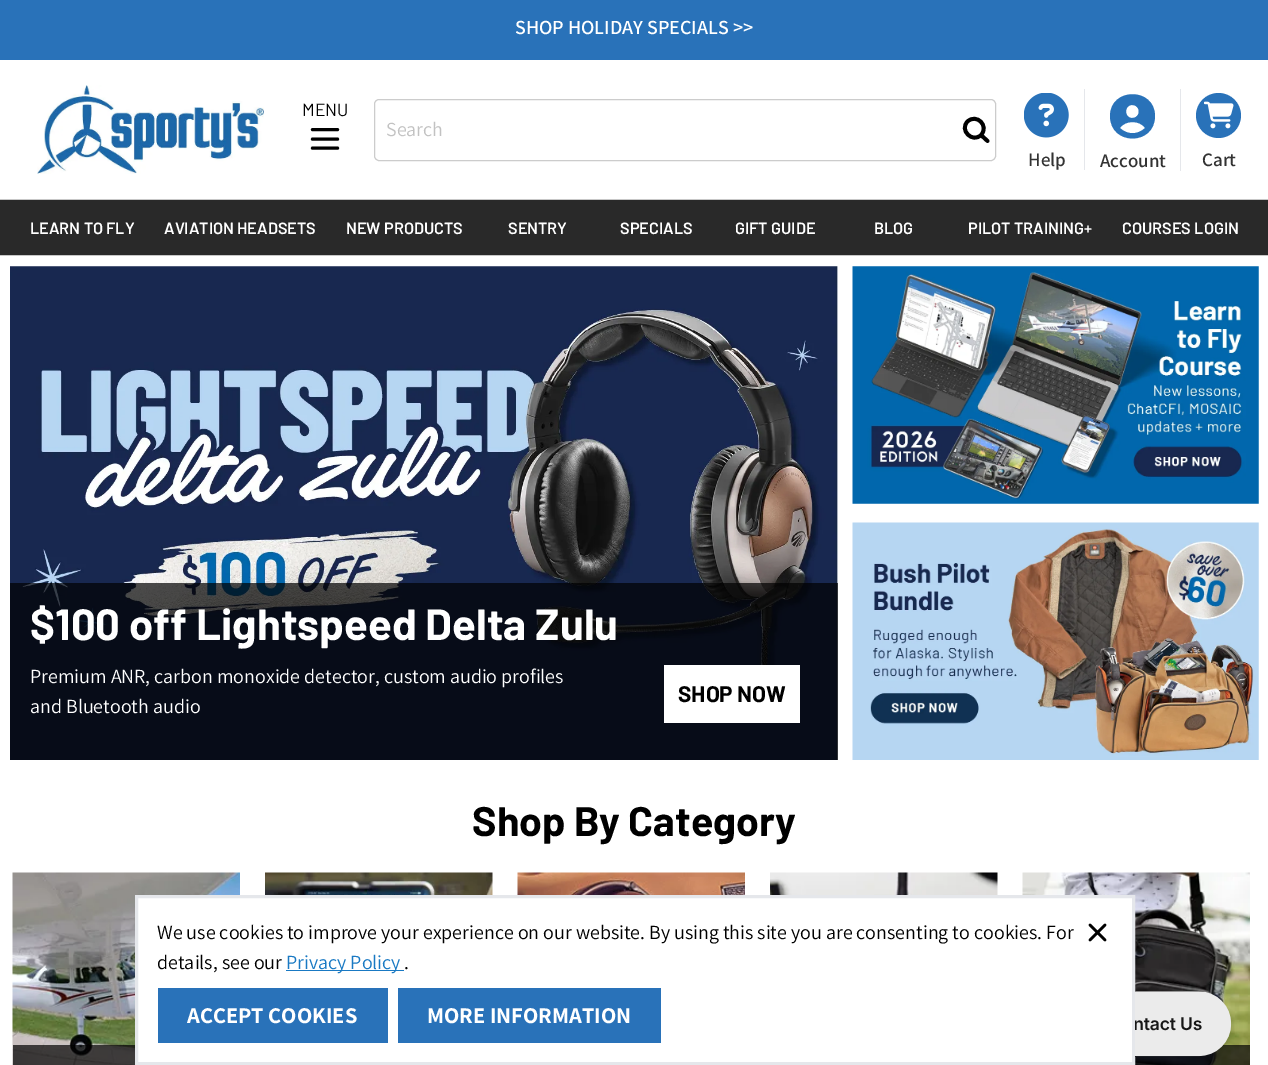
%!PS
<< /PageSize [1268 1065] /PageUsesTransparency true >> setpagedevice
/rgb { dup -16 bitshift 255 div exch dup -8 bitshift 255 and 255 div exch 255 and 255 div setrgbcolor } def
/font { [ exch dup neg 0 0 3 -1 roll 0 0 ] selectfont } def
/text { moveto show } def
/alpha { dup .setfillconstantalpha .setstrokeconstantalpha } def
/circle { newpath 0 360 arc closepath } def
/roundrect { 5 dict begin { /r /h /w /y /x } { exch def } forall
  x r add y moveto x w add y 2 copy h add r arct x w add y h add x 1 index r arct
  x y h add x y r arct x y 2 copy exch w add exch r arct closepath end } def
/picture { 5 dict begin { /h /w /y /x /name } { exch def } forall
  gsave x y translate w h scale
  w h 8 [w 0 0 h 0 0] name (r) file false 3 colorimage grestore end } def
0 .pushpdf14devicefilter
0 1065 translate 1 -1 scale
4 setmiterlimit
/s1 { /Assistant-SemiBold 20 font 16#FFFFFF rgb } def
/s2 { /Barlow-Regular 17.5 font 16#000000 rgb } def
/s3 { /Assistant-Regular 20 font 16#C2C2C2 rgb } def
/s4 { /Assistant-SemiBold 19 font 16#333333 rgb } def
/s5 { /Barlow-SemiBold 16.25 font 16#FFFFFF rgb } def
/s6 { /Barlow-Bold 43.75 font 16#FFFFFF rgb } def
/s7 { /Assistant-Regular 20 font 16#FFFFFF rgb } def
/s8 { /Barlow-Bold 22.5 font 16#000000 rgb } def
/s9 { /Barlow-Bold 41.25 font 16#000000 rgb } def
/s10 { /Assistant-Regular 20 font 16#000000 rgb } def
/s11 { /Assistant-Regular 20 font 16#1979C3 rgb } def
/s12 { /Assistant-Bold 22.5 font 16#FFFFFF rgb } def
16#FFFFFF rgb
0 0 1268 1065 rectfill
16#2972B9 rgb
0 0 1268 60 rectfill
s1
(SHOP HOLIDAY SPECIALS >>) 515 34 text
(pic1.raw) 37 85 227 89 picture
s2
(MENU) 302 116 text
3.1 setlinewidth
1 setlinecap
1 setlinejoin
312.5 129.5 moveto 337.5 129.5 lineto 312.5 139 moveto 337.5 139 lineto 312.5 148 moveto 337.5 148 lineto stroke
16#CCCCCC rgb
1 setlinewidth
0 setlinecap
0 setlinejoin
374.5 99.5 621 61 4.5 roundrect stroke
s3
(Search) 386 136 text
16#000000 rgb
3.8 setlinewidth
1 setlinecap
1 setlinejoin
987.5 141 moveto 981 135 lineto 981 135 moveto 989.5 126 976.5 113 967.5 121.5 curveto 959 130 972.5 143.5 981 135 curveto closepath stroke
16#E5E7EB rgb
1084 89 1 81 rectfill
(pic2.raw) 1024 93 45 45 picture
s4
(Help) 1028 166 text
16#E5E7EB rgb
1180 89 1 82 rectfill
16#2972B9 rgb
1145 128 moveto 1140 120 1125 120 1120 128 curveto 1127 135 1138 135 1145 128 curveto closepath 1110 116 moveto 1110 87 1155 87 1155 116 curveto 1155 146 1110 146 1110 116 curveto closepath 1132 118 moveto 1141 118 1141 105 1132 105 curveto 1124 105 1124 118 1132 118 curveto closepath fill
s4
(Account) 1100 167 text
16#2972B9 rgb
1218.5 115.5 22.5 circle fill
(pic3.raw) 1204 101 30 28 picture
s4
(Cart) 1202 166 text
16#292929 rgb
0 200 1268 55 rectfill
16#C7C7C7 rgb
0 199 1268 1 rectfill
0 255 1268 1 rectfill
s5
(LEARN TO FLY) 30 234 text
(AVIATION HEADSETS) 164 234 text
(NEW PRODUCTS) 346 234 text
(SENTRY) 508 234 text
(SPECIALS) 620 234 text
(GIFT GUIDE) 735 234 text
(BLOG) 874 234 text
(PILOT TRAINING+) 968 234 text
(COURSES LOGIN) 1122 234 text
(pic4.raw) 852 266 407 238 picture
(pic5.raw) 10 266 828 494 picture
0.7 alpha
16#000000 rgb
10 583 828 177 rectfill
1 alpha
s6
($100 off Lightspeed Delta Zulu) 30 640 text
s7
(Premium ANR, carbon monoxide detector, custom audio profiles) 30 683 text
(and Bluetooth audio) 30 713 text
664 665 136 58 rectfill
s8
(SHOP NOW) 678 702 text
(pic6.raw) 852 522 407 238 picture
s9
(Shop By Category) 472 836 text
(pic7.raw) 12 872 228 193 picture
0.7 alpha
13 1045 122 20 rectfill
1 alpha
(pic8.raw) 265 872 228 23 picture
(pic9.raw) 517 872 228 23 picture
(pic10.raw) 770 872 228 23 picture
(pic11.raw) 1022 872 228 193 picture
0.7 alpha
1135 1045 115 20 rectfill
1 alpha
16#FFFFFF rgb
136.5 896.5 moveto 1133.5 896.5 lineto 1133.5 1063.5 lineto 136.5 1063.5 lineto closepath gsave fill grestore
16#E5E7EB rgb
3 setlinewidth
0 setlinecap
0 setlinejoin
stroke
s10
(We use cookies to improve your experience on our website. By using this site you are consenting to cookies. For) 157 939 text
(details, see our) 157 969 text
16#1979C3 rgb
286 970 118 1 rectfill
(Privacy Policy) 286 969 text
s10
(.) 404 969 text
16#2972B9 rgb
158 988 230 55 rectfill
s12
(ACCEPT COOKIES) 187 1023 text
16#2972B9 rgb
398 988 263 55 rectfill
s12
(MORE INFORMATION) 427 1023 text
16#000000 rgb
2.5 setlinewidth
1 setlinecap
1 setlinejoin
1090 940 moveto 1105 925 lineto 1090 925 moveto 1105 940 lineto stroke
(pic12.raw) 1135 991 99 66 picture
.poppdf14devicefilter showpage
